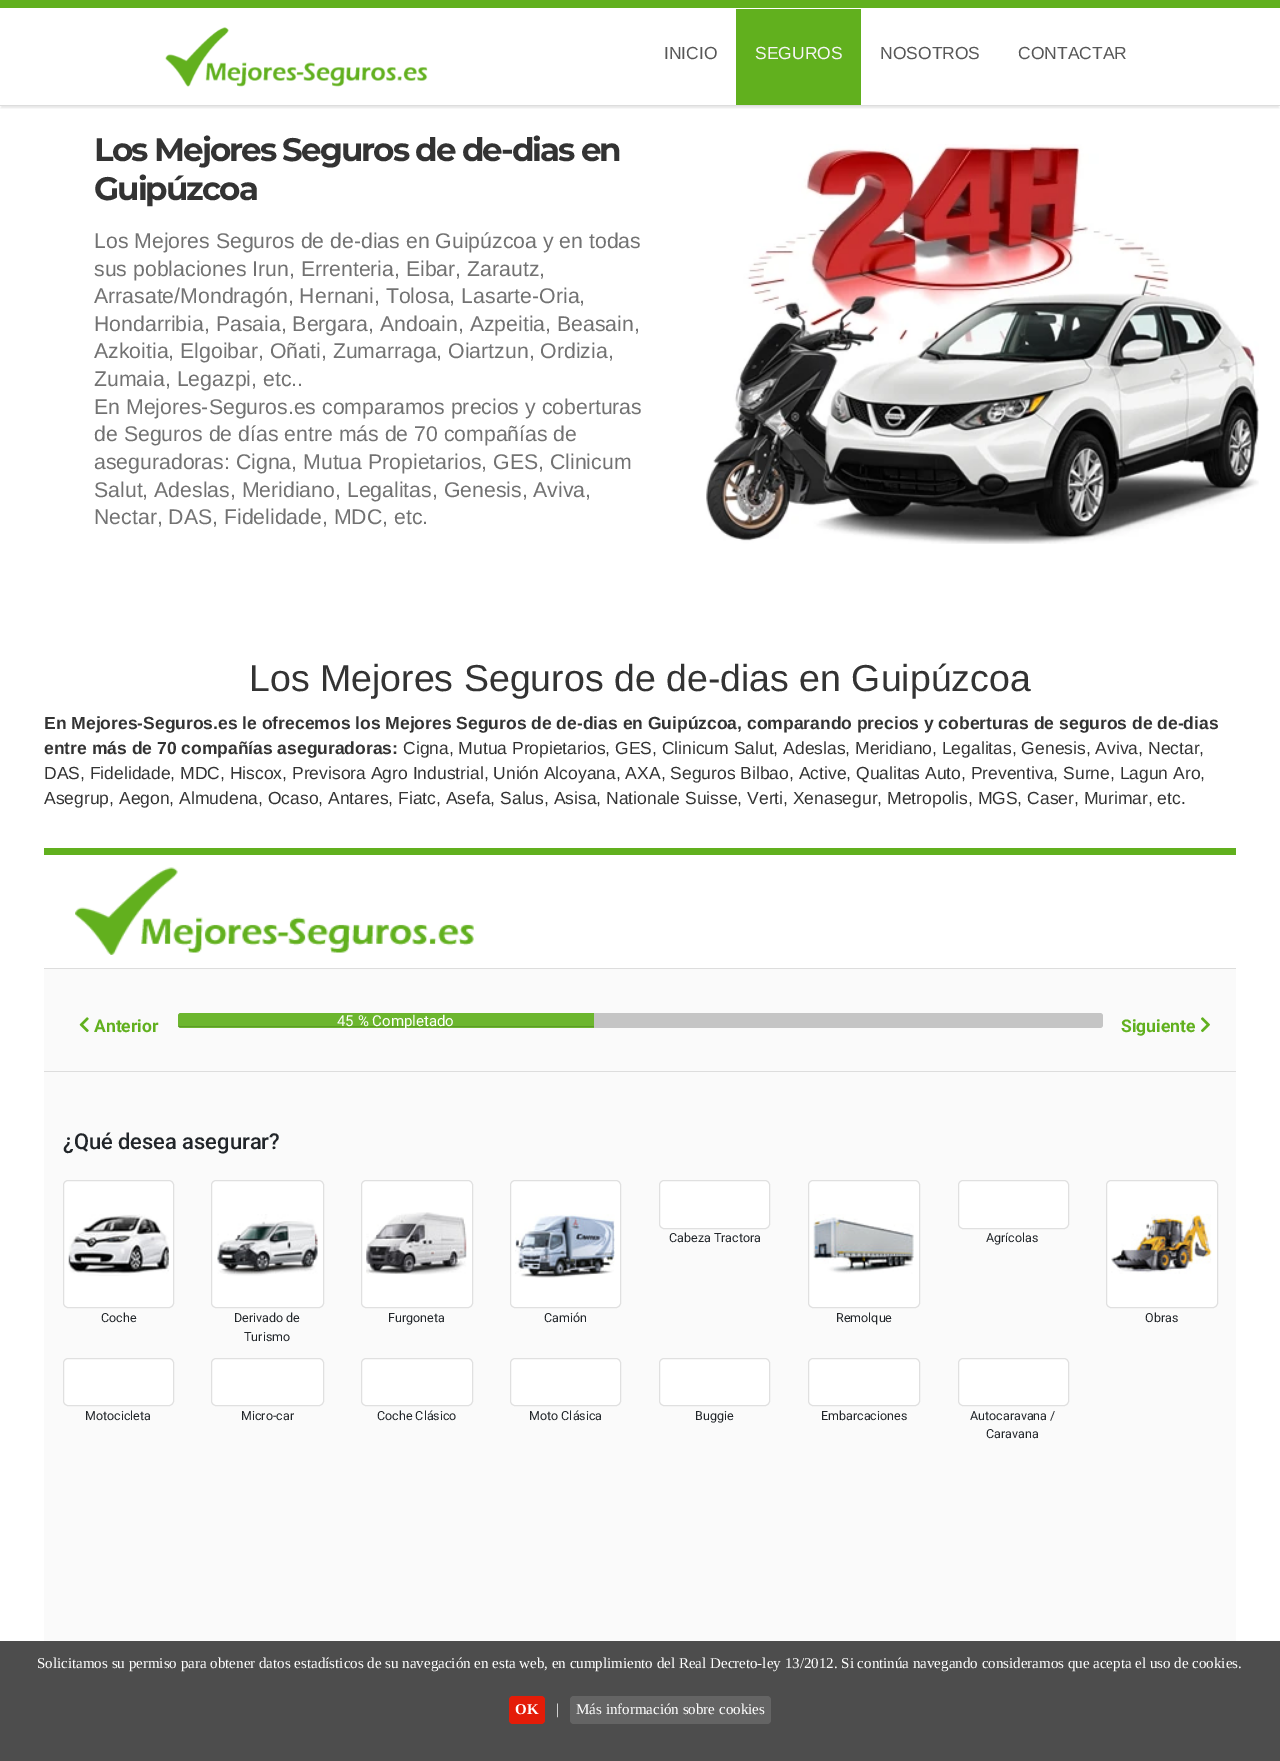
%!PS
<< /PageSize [1280 1761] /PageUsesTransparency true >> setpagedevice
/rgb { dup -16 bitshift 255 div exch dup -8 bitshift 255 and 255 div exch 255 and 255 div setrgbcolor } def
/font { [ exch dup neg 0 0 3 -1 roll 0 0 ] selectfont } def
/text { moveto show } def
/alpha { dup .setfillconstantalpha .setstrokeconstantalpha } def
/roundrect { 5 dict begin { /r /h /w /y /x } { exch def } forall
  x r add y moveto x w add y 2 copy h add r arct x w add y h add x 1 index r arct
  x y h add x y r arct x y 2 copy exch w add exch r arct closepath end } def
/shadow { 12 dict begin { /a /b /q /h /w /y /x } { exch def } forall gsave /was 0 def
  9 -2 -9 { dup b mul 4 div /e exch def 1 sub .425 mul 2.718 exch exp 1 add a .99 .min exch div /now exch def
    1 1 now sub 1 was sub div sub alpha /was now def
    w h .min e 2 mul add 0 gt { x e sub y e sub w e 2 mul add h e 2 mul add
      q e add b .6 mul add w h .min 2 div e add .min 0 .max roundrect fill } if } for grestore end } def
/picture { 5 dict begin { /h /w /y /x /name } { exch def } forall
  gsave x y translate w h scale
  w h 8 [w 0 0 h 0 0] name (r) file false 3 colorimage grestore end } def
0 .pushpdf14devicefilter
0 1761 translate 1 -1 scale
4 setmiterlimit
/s1 { /LiberationSans-Regular 17.5 font 16#575757 rgb } def
/s2 { /LiberationSans-Regular 17.5 font 16#F5F5F5 rgb } def
/s3 { /LiberationSans-Regular 21.25 font 16#727272 rgb } def
/s4 { /LiberationSans-Regular 37.5 font 16#333333 rgb } def
/s5 { /LiberationSans-Bold 17.5 font 16#333333 rgb } def
/s6 { /LiberationSans-Regular 17.5 font 16#333333 rgb } def
/s7 { /Roboto-Bold 17.5 font 16#61B01E rgb } def
/s8 { /Roboto-Regular 15 font 16#FFFFFF rgb } def
/s9 { /Roboto-Medium 21.9 font 16#212529 rgb } def
/s10 { /Roboto-Regular 12.5 font 16#212529 rgb } def
/s11 { /LiberationSerif-Regular 15 font 16#FFFFFF rgb } def
/s12 { /LiberationSerif-Bold 15 font 16#FFFFFF rgb } def
16#FFFFFF rgb
0 0 1280 1761 rectfill
16#4D4D4D rgb
0 1641 1280 120 rectfill
gsave
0 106 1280 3 rectclip
16#000000 rgb
1 4 1278 104 0 1 0.1 shadow
grestore
16#61B01E rgb
0 0 1280 8 rectfill
16#DDDDDD rgb
0 105 1280 1 rectfill
(pic1.raw) 165 27 263 60 picture
s1
(INICIO) 664 59 text
16#61B01E rgb
736 9 125 96 rectfill
s2
(SEGUROS) 755 59 text
s1
(NOSOTROS) 880 59 text
(CONTACTAR) 1018 59 text
/Montserrat-Bold 32.5 font
16#333333 rgb
94 161 moveto -1.9 0 (Los Mejores Seguros de de-dias en) ashow
94 200 moveto -1.9 0 (Guipúzcoa) ashow
s3
(Los Mejores Seguros de de-dias en Guipúzcoa y en todas) 94 248 text
(sus poblaciones Irun, Errenteria, Eibar, Zarautz,) 94 276 text
(Arrasate/Mondragón, Hernani, Tolosa, Lasarte-Oria,) 94 303 text
(Hondarribia, Pasaia, Bergara, Andoain, Azpeitia, Beasain,) 94 331 text
(Azkoitia, Elgoibar, Oñati, Zumarraga, Oiartzun, Ordizia,) 94 358 text
(Zumaia, Legazpi, etc..) 94 386 text
(En Mejores-Seguros.es comparamos precios y coberturas) 94 414 text
(de Seguros de días entre más de 70 compañías de) 94 441 text
(aseguradoras: Cigna, Mutua Propietarios, GES, Clinicum) 94 469 text
(Salut, Adeslas, Meridiano, Legalitas, Genesis, Aviva,) 94 497 text
(Nectar, DAS, Fidelidade, MDC, etc.) 94 524 text
(pic2.raw) 706 144 553 400 picture
s4
(Los Mejores Seguros de de-dias en Guipúzcoa) 249 691 text
s5
(En Mejores-Seguros.es le ofrecemos los Mejores Seguros de de-dias en Guipúzcoa, comparando precios y coberturas de seguros de de-dias) 44 729 text
(entre más de 70 compañías aseguradoras:) 44 754 text
s6
(Cigna, Mutua Propietarios, GES, Clinicum Salut, Adeslas, Meridiano, Legalitas, Genesis, Aviva, Nectar,) 403 754 text
(DAS, Fidelidade, MDC, Hiscox, Previsora Agro Industrial, Unión Alcoyana, AXA, Seguros Bilbao, Active, Qualitas Auto, Preventiva, Surne, Lagun Aro,) 44 779 text
(Asegrup, Aegon, Almudena, Ocaso, Antares, Fiatc, Asefa, Salus, Asisa, Nationale Suisse, Verti, Xenasegur, Metropolis, MGS, Caser, Murimar, etc.) 44 804 text
16#61B01E rgb
44 848 1192 7 rectfill
16#DDDDDD rgb
44 968 1192 1 rectfill
(pic3.raw) 75 867 399 88 picture
16#FAFAFA rgb
44 969 1192 672 rectfill
16#DDDDDD rgb
44 1071 1192 1 rectfill
(pic4.raw) 79 1017 10 16 picture
s7
(Anterior) 94 1032 text
16#C5C5C5 rgb
178 1013 925 15 3 roundrect fill
16#61B01E rgb
181 1013 moveto 594 1013 lineto 594 1028 lineto 181 1028 lineto 179.5 1028 178 1026.5 178 1025 curveto 178 1016 lineto 178 1014.5 179.5 1013 181 1013 curveto closepath fill
0.07 alpha
16#FFFFFF rgb
181 1013 moveto 594 1013 lineto 594 1028 lineto 181 1028 lineto 179.5 1028 178 1026.5 178 1025 curveto 178 1016 lineto 178 1014.5 179.5 1013 181 1013 curveto closepath fill
0.15 alpha
16#000000 rgb
178 1026 416 1 rectfill
1 alpha
s8
(45 % Completado) 337 1026 text
s7
(Siguiente) 1121 1032 text
(pic5.raw) 1201 1017 9 16 picture
s9
(¿Qué desea asegurar?) 63 1149 text
16#FFFFFF rgb
659.5 1180.5 110 48 4.5 roundrect gsave fill grestore
16#E0E0E0 rgb
stroke
s10
(Cabeza Tractora) 669 1242 text
16#FFFFFF rgb
958.5 1180.5 110 48 4.5 roundrect gsave fill grestore
16#E0E0E0 rgb
stroke
s10
(Agrícolas) 986 1242 text
16#FFFFFF rgb
63.5 1180.5 110 127 4.5 roundrect gsave fill grestore
16#E0E0E0 rgb
stroke
(pic6.raw) 68 1214 101 62 picture
s10
(Coche) 101 1322 text
16#FFFFFF rgb
211.5 1180.5 112 127 4.5 roundrect gsave fill grestore
16#E0E0E0 rgb
stroke
(pic7.raw) 217 1214 101 62 picture
s10
(Derivado de) 234 1322 text
(Turismo) 244 1341 text
16#FFFFFF rgb
361.5 1180.5 111 127 4.5 roundrect gsave fill grestore
16#E0E0E0 rgb
stroke
(pic8.raw) 366 1212 101 63 picture
s10
(Furgoneta) 388 1322 text
16#FFFFFF rgb
510.5 1180.5 110 127 4.5 roundrect gsave fill grestore
16#E0E0E0 rgb
stroke
(pic9.raw) 515 1214 100 64 picture
s10
(Camión) 544 1322 text
16#FFFFFF rgb
808.5 1180.5 111 127 4.5 roundrect gsave fill grestore
16#E0E0E0 rgb
stroke
(pic10.raw) 813 1214 101 60 picture
s10
(Remolque) 836 1322 text
16#FFFFFF rgb
1106.5 1180.5 111 127 4.5 roundrect gsave fill grestore
16#E0E0E0 rgb
stroke
(pic11.raw) 1111 1214 101 60 picture
s10
(Obras) 1145 1322 text
16#FFFFFF rgb
63.5 1358.5 110 47 4.5 roundrect gsave fill grestore
16#E0E0E0 rgb
stroke
s10
(Motocicleta) 85 1420 text
16#FFFFFF rgb
211.5 1358.5 112 47 4.5 roundrect gsave fill grestore
16#E0E0E0 rgb
stroke
s10
(Micro-car) 241 1420 text
16#FFFFFF rgb
361.5 1358.5 111 47 4.5 roundrect gsave fill grestore
16#E0E0E0 rgb
stroke
s10
(Coche Clásico) 377 1420 text
16#FFFFFF rgb
510.5 1358.5 110 47 4.5 roundrect gsave fill grestore
16#E0E0E0 rgb
stroke
s10
(Moto Clásica) 529 1420 text
16#FFFFFF rgb
659.5 1358.5 110 47 4.5 roundrect gsave fill grestore
16#E0E0E0 rgb
stroke
s10
(Buggie) 695 1420 text
16#FFFFFF rgb
808.5 1358.5 111 47 4.5 roundrect gsave fill grestore
16#E0E0E0 rgb
stroke
s10
(Embarcaciones) 821 1420 text
16#FFFFFF rgb
958.5 1358.5 110 47 4.5 roundrect gsave fill grestore
16#E0E0E0 rgb
stroke
s10
(Autocaravana /) 970 1420 text
(Caravana) 986 1438 text
s11
(Solicitamos su permiso para obtener datos estadísticos de su navegación en esta web, en cumplimiento del Real Decreto-ley 13/2012. Si continúa navegando consideramos que acepta el uso de cookies.) 37 1668 text
16#E41C08 rgb
509 1696 36 28 4 roundrect fill
s12
(OK) 515 1714 text
s11
(|) 556 1714 text
16#646464 rgb
570 1696 201 28 4 roundrect fill
s11
(Más información sobre cookies) 576 1714 text
.poppdf14devicefilter showpage
